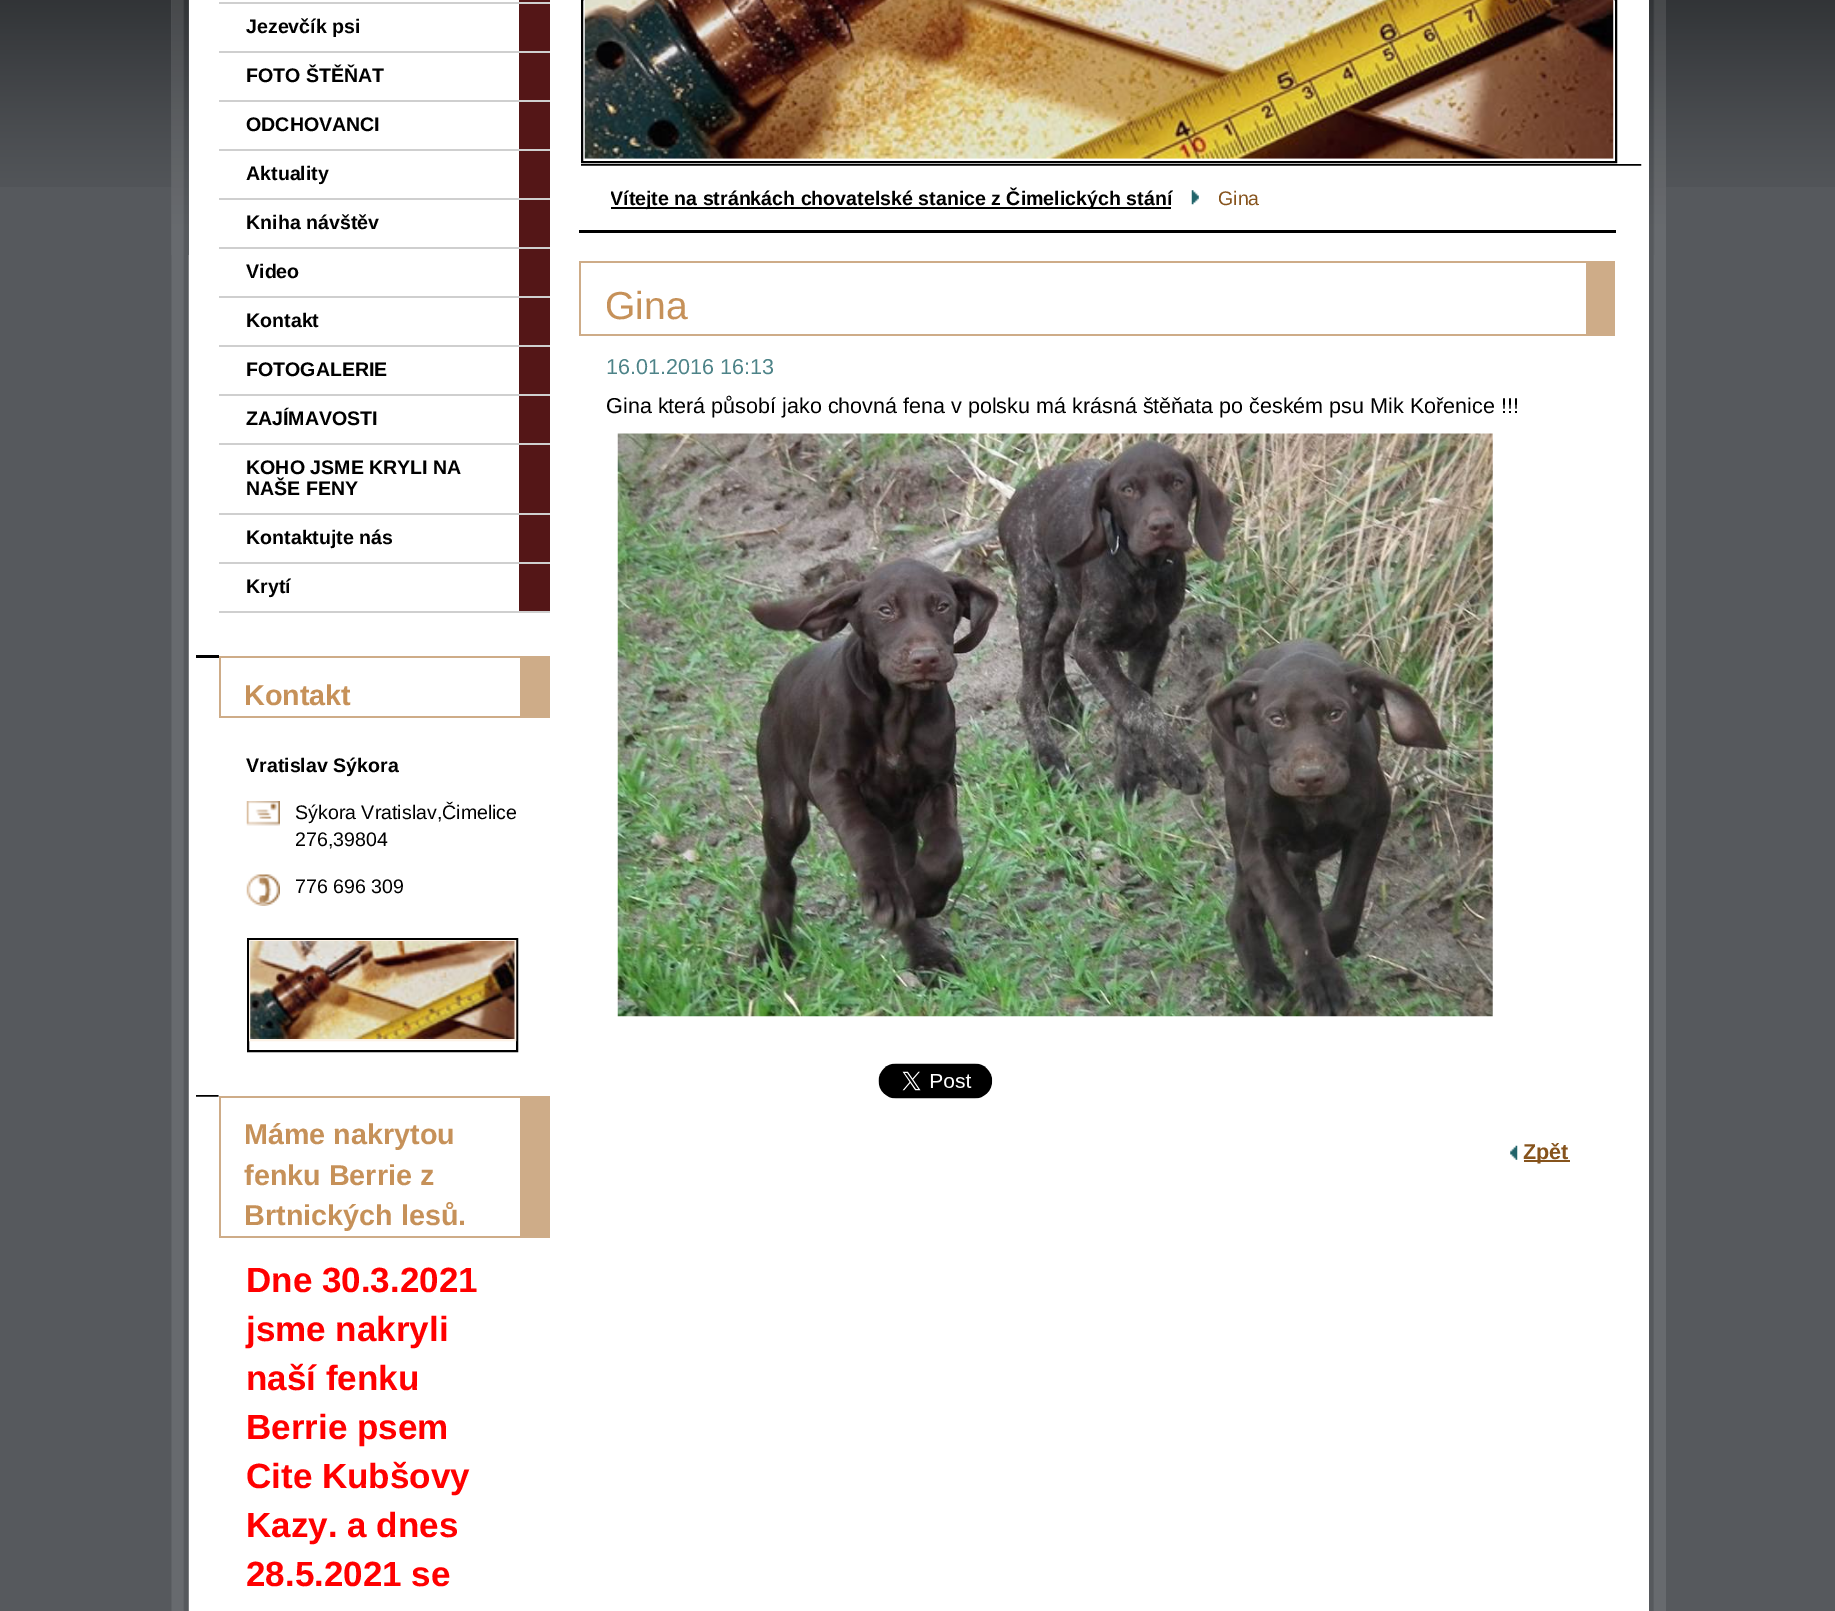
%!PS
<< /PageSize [1835 1611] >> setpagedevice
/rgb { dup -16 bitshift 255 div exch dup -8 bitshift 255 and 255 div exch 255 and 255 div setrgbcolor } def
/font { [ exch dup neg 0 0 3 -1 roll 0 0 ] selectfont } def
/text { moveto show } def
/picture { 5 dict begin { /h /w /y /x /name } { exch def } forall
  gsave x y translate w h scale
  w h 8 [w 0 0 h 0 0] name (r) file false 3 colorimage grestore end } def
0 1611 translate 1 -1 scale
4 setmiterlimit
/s1 { /LiberationSans-Bold 19.6 font 16#000000 rgb } def
/s2 { /LiberationSans-Bold 28.75 font 16#C69159 rgb } def
/s3 { /LiberationSans-Regular 19.6 font 16#000000 rgb } def
/s4 { /LiberationSans-Bold 35 font 16#FF0000 rgb } def
/s5 { /LiberationSans-Regular 19.6 font 16#86531C rgb } def
/s6 { /LiberationSans-Regular 39 font 16#C69159 rgb } def
/s7 { /LiberationSans-Regular 21.55 font 16#4D8388 rgb } def
/s8 { /LiberationSans-Regular 21.55 font 16#000000 rgb } def
/s9 { /LiberationSans-Bold 21.55 font 16#86531C rgb } def
16#56595D rgb
0 0 1835 1611 rectfill
(pic1.raw) 0 0 1835 187 picture
16#676A6E rgb
1654 255 12 1356 rectfill
(pic2.raw) 171 0 1483 1611 picture
(pic3.raw) 171 0 1495 255 picture
16#FFFFFF rgb
189 0 1460 1611 rectfill
16#541617 rgb
519 0 31 611 rectfill
16#CFCFCF rgb
219 2 331 2 rectfill
219 51 331 2 rectfill
s1
(Jezevčík psi) 246 33 text
16#CFCFCF rgb
219 100 331 2 rectfill
s1
(FOTO ŠTĚŇAT) 246 82 text
16#CFCFCF rgb
219 149 331 2 rectfill
s1
(ODCHOVANCI) 246 131 text
16#CFCFCF rgb
219 198 331 2 rectfill
s1
(Aktuality) 246 180 text
16#CFCFCF rgb
219 247 331 2 rectfill
s1
(Kniha návštěv) 246 229 text
16#CFCFCF rgb
219 296 331 2 rectfill
s1
(Video) 246 278 text
16#CFCFCF rgb
219 345 331 2 rectfill
s1
(Kontakt) 246 327 text
16#CFCFCF rgb
219 394 331 2 rectfill
s1
(FOTOGALERIE) 246 376 text
16#CFCFCF rgb
219 443 331 2 rectfill
s1
(ZAJÍMAVOSTI) 246 425 text
16#CFCFCF rgb
219 513 331 2 rectfill
s1
(KOHO JSME KRYLI NA) 246 474 text
(NAŠE FENY) 246 495 text
16#CFCFCF rgb
219 562 331 2 rectfill
s1
(Kontaktujte nás) 246 544 text
16#CFCFCF rgb
219 611 331 2 rectfill
s1
(Krytí) 246 593 text
196 655 23 3 rectfill
16#CEAC88 rgb
219 656 301 2 rectfill
520 656 30 60 rectfill
219 716 331 2 rectfill
219 656 2 62 rectfill
s2
(Kontakt) 244 705 text
s1
(Vratislav Sýkora) 246 772 text
(pic4.raw) 246 801 34 25 picture
s3
(Sýkora Vratislav,Čimelice) 295 819 text
(276,39804) 295 846 text
(pic5.raw) 246 874 34 32 picture
(776 696 309) 295 893 text
2 setlinewidth
248 939 269 112 rectstroke
16#FDF2E6 rgb
250 941 265 99 rectstroke
(pic6.raw) 250 941 265 98 picture
(pic7.raw) 196 1095 23 2 picture
16#CEAC88 rgb
219 1096 301 2 rectfill
520 1096 30 140 rectfill
219 1236 331 2 rectfill
219 1096 2 141 rectfill
s2
(Máme nakrytou) 244 1144 text
(fenku Berrie z) 244 1185 text
(Brtnických lesů.) 244 1225 text
s4
(Dne 30.3.2021) 246 1292 text
(jsme nakryli) 246 1341 text
(naší fenku) 246 1390 text
(Berrie psem) 246 1439 text
(Cite Kubšovy) 246 1488 text
(Kazy. a dnes) 246 1537 text
(28.5.2021 se) 246 1586 text
(pic8.raw) 581 164 1061 2 picture
16#000000 rgb
582 -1 1034 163 rectstroke
(pic9.raw) 584 0 1030 159 picture
579 230 1037 3 rectfill
611 207 560 2 rectfill
gsave
611 166 973 67 rectclip
s1
(Vítejte na stránkách chovatelské stanice z Čimelických stání) 610 205 text
grestore
(pic10.raw) 1191 190 8 15 picture
s5
(Gina) 1218 205 text
16#CEAC88 rgb
579 261 1007 2 rectfill
1586 261 29 73 rectfill
579 334 1036 2 rectfill
579 261 2 75 rectfill
s6
(Gina) 605 319 text
s7
(16.01.2016 16:13) 606 374 text
s8
(Gina která působí jako chovná fena v polsku má krásná štěňata po českém psu Mik Kořenice !!!) 606 413 text
(pic11.raw) 617 433 876 584 picture
(pic12.raw) 878 1063 115 36 picture
(pic13.raw) 1510 1145 8 15 picture
16#86531C rgb
1524 1160 46 2 rectfill
s9
(Zpět) 1523 1159 text
showpage
